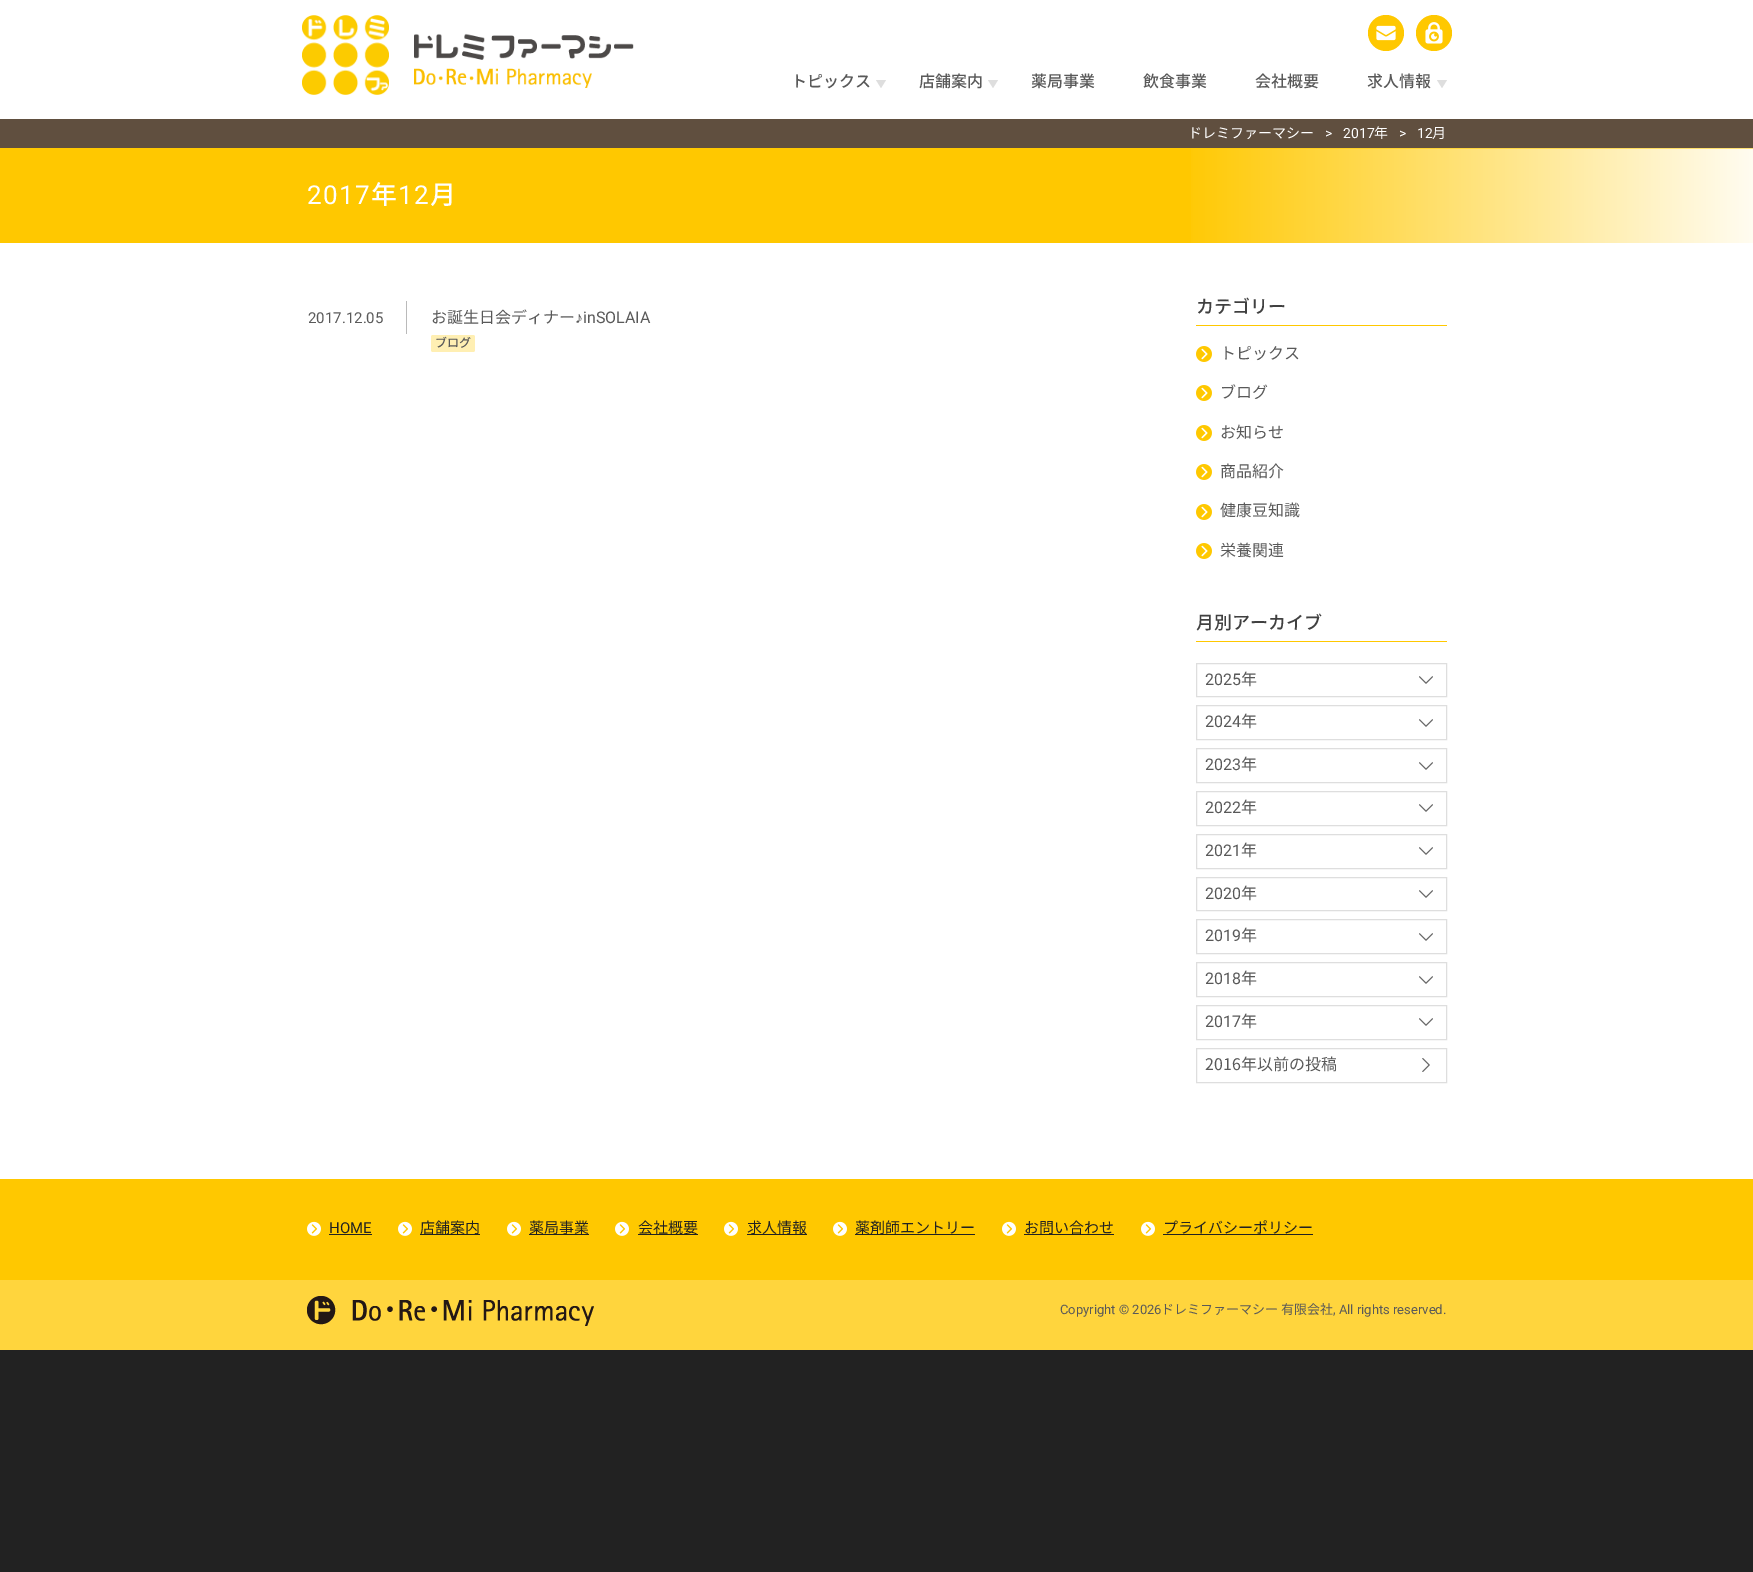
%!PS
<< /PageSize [1753 1572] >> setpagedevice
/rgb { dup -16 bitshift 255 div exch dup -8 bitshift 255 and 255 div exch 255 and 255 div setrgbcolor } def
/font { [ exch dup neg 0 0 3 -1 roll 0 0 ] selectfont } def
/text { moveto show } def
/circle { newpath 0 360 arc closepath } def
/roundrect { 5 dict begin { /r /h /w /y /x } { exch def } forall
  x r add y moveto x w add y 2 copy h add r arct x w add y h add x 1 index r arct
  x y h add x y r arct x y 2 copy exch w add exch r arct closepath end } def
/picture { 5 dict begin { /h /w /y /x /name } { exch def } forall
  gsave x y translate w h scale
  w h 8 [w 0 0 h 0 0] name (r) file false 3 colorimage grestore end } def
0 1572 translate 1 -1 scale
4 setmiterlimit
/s1 { /NotoSansJP-Medium 16 font 16#595959 rgb } def
/s2 { /NotoSansJP-Regular 14 font 16#FFFFFF rgb } def
/s3 { /Roboto-Regular 14 font 16#FFFFFF rgb } def
/s4 { /Roboto-Regular 15 font 16#595959 rgb } def
/s5 { /NotoSansJP-Regular 16 font 16#595959 rgb } def
/s6 { /LiberationSans-Regular 16 font 16#595959 rgb } def
/s7 { /Roboto-Regular 16 font 16#595959 rgb } def
/s8 { /NotoSansJP-Medium 12 font 16#595959 rgb } def
/s9 { /NotoSansJP-Medium 18 font 16#404040 rgb } def
/s10 { /Roboto-Regular 15 font 16#222222 rgb } def
/s11 { /NotoSansJP-Regular 15 font 16#222222 rgb } def
/s12 { /Roboto-Regular 13 font 16#595959 rgb } def
/s13 { /NotoSansJP-Regular 13 font 16#595959 rgb } def
16#222222 rgb
0 0 1753 1572 rectfill
16#FFFFFF rgb
0 0 1753 1179 rectfill
(pic1.raw) 302 15 87 80 picture
(pic2.raw) 414 33 220 55 picture
16#FFC800 rgb
1386 33 18 circle fill
(pic3.raw) 1376 25 20 16 picture
1434 33 18 circle fill
(pic4.raw) 1425 22 18 22 picture
s1
(トピックス) 791 87 text
16#DEDEDE rgb
876 80 moveto 886 80 lineto 881 88 lineto closepath fill
s1
(店舗案内) 919 87 text
16#DEDEDE rgb
988 80 moveto 998 80 lineto 993 88 lineto closepath fill
s1
(薬局事業) 1031 87 text
(飲食事業) 1143 87 text
(会社概要) 1255 87 text
(求人情報) 1367 87 text
16#DEDEDE rgb
1437 80 moveto 1447 80 lineto 1442 88 lineto closepath fill
16#604F3F rgb
0 119 1753 29 rectfill
s2
(ドレミファーマシー) 1188 138 text
s3
(>) 1325 138 text
(2017) 1343 138 text
s2
(年) 1374 138 text
s3
(>) 1399 138 text
(12) 1417 138 text
s2
(月) 1432 138 text
16#FFC800 rgb
0 148 1753 95 rectfill
(pic5.raw) 1191 148 562 95 picture
/Roboto-Regular 26 font
16#FFFFFF rgb
307 204 moveto 1.5 0 (2017) ashow
/NotoSansJP-Medium 26 font
371 204 moveto 1.5 0 (年) ashow
/Roboto-Regular 26 font
398 204 moveto 1.5 0 (12) ashow
/NotoSansJP-Medium 26 font
430 204 moveto 1.5 0 (月) ashow
16#BABABA rgb
406 301 1 33 rectfill
s4
(2017.12.05) 308 323 text
s5
(お誕生日会ディナー) 431 323 text
s6
(♪) 575 323 text
s7
(inSOLAIA) 583 323 text
16#FFEFB3 rgb
431 335 44 17 2 roundrect fill
s8
(ブログ) 435 347 text
16#FFC800 rgb
1196 325 251 1 rectfill
s9
(カテゴリー) 1196 313 text
(pic6.raw) 1196 346 16 16 picture
s5
(トピックス) 1220 359 text
(pic6.raw) 1196 385 16 16 picture
(ブログ) 1220 398 text
(pic6.raw) 1196 425 16 16 picture
(お知らせ) 1220 438 text
(pic6.raw) 1196 464 16 16 picture
(商品紹介) 1220 477 text
(pic6.raw) 1196 504 16 16 picture
(健康豆知識) 1220 516 text
(pic6.raw) 1196 543 16 16 picture
(栄養関連) 1220 556 text
16#FFC800 rgb
1196 641 251 1 rectfill
s9
(月別アーカイブ) 1196 629 text
16#DEDEDE rgb
1196.5 663.5 250 33 rectstroke
s7
(2025) 1205 685 text
s5
(年) 1241 685 text
(pic7.raw) 1419 676 14 8 picture
16#DEDEDE rgb
1196.5 705.5 250 34 rectstroke
s7
(2024) 1205 727 text
s5
(年) 1241 727 text
(pic7.raw) 1419 719 14 8 picture
16#DEDEDE rgb
1196.5 748.5 250 34 rectstroke
s7
(2023) 1205 770 text
s5
(年) 1241 770 text
(pic7.raw) 1419 762 14 8 picture
16#DEDEDE rgb
1196.5 791.5 250 34 rectstroke
s7
(2022) 1205 813 text
s5
(年) 1241 813 text
(pic7.raw) 1419 804 14 8 picture
16#DEDEDE rgb
1196.5 834.5 250 34 rectstroke
s7
(2021) 1205 856 text
s5
(年) 1241 856 text
(pic7.raw) 1419 847 14 8 picture
16#DEDEDE rgb
1196.5 877.5 250 33 rectstroke
s7
(2020) 1205 899 text
s5
(年) 1241 899 text
(pic7.raw) 1419 890 14 8 picture
16#DEDEDE rgb
1196.5 919.5 250 34 rectstroke
s7
(2019) 1205 941 text
s5
(年) 1241 941 text
(pic7.raw) 1419 933 14 8 picture
16#DEDEDE rgb
1196.5 962.5 250 34 rectstroke
s7
(2018) 1205 984 text
s5
(年) 1241 984 text
(pic7.raw) 1419 976 14 8 picture
16#DEDEDE rgb
1196.5 1005.5 250 34 rectstroke
s7
(2017) 1205 1027 text
s5
(年) 1241 1027 text
(pic7.raw) 1419 1018 14 8 picture
16#DEDEDE rgb
1196.5 1048.5 250 34 rectstroke
s5
(2016年以前の投稿) 1205 1070 text
(pic8.raw) 1422 1058 8 14 picture
16#FFC800 rgb
0 1179 1753 101 rectfill
(pic9.raw) 307 1221 14 15 picture
s10
(HOME) 329 1233 text
329 1234 43 1 rectfill
(pic9.raw) 398 1221 14 15 picture
420 1234 60 1 rectfill
s11
(店舗案内) 420 1233 text
(pic9.raw) 507 1221 14 15 picture
529 1234 60 1 rectfill
(薬局事業) 529 1233 text
(pic9.raw) 615 1221 14 15 picture
638 1234 60 1 rectfill
(会社概要) 638 1233 text
(pic9.raw) 724 1221 14 15 picture
747 1234 60 1 rectfill
(求人情報) 747 1233 text
(pic9.raw) 833 1221 14 15 picture
855 1234 120 1 rectfill
(薬剤師エントリー) 855 1233 text
(pic9.raw) 1002 1221 14 15 picture
1024 1234 90 1 rectfill
(お問い合わせ) 1024 1233 text
(pic9.raw) 1141 1221 14 15 picture
(プライバシーポリシー) 1163 1233 text
1163 1234 150 1 rectfill
16#FFD53D rgb
0 1280 1753 70 rectfill
(pic10.raw) 307 1296 287 30 picture
s12
(Copyright © 2026) 1060 1314 text
s13
(ドレミファーマシー) 1161 1314 text
(有限会社) 1281 1314 text
s12
(, All rights reserved.) 1333 1314 text
showpage
